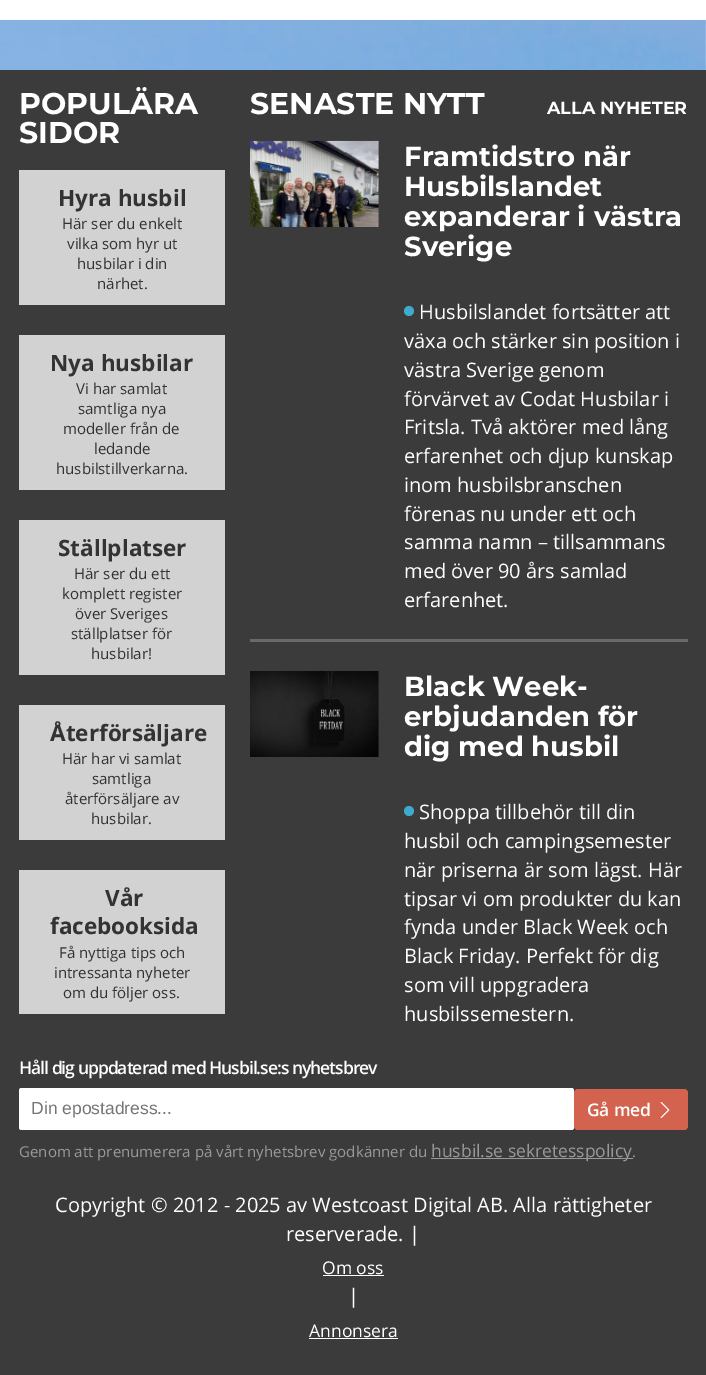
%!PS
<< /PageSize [706 1375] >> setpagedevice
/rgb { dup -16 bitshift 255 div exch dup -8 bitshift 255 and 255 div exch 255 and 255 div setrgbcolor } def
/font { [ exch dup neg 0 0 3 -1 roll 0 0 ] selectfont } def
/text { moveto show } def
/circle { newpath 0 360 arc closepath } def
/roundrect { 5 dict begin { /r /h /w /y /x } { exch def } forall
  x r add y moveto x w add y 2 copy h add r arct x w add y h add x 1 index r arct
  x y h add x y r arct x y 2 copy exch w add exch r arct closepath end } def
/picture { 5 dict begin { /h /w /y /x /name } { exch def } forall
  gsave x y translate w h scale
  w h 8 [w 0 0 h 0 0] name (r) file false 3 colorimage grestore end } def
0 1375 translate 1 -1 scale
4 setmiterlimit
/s1 { /Montserrat-Bold 30 font 16#FFFFFF rgb } def
/s2 { /OpenSans-Bold 22.5 font 16#333333 rgb } def
/s3 { /OpenSans-Regular 15 font 16#333333 rgb } def
/s4 { /Montserrat-Bold 17.5 font 16#FFFFFF rgb } def
/s5 { /Montserrat-Bold 27.5 font 16#FFFFFF rgb } def
/s6 { /OpenSans-Regular 20 font 16#FFFFFF rgb } def
/s7 { /LiberationSans-Regular 17.5 font 16#757575 rgb } def
/s8 { /OpenSans-Regular 15 font 16#999999 rgb } def
/s9 { /OpenSans-Regular 17.5 font 16#999999 rgb } def
/s10 { /OpenSans-Regular 17.5 font 16#FFFFFF rgb } def
16#FFFFFF rgb
0 0 706 1375 rectfill
(pic1.raw) 0 20 706 50 picture
16#3B3B3B rgb
0 70 706 1305 rectfill
s1
(POPULÄRA) 19 114 text
(SIDOR) 19 143 text
16#D2D2D2 rgb
19 170 206 135 rectfill
s2
(Hyra husbil) 58 206 text
s3
(Här ser du enkelt) 62 229 text
(vilka som hyr ut) 67 249 text
(husbilar i din) 77 269 text
(närhet.) 97 289 text
16#D2D2D2 rgb
19 335 206 155 rectfill
s2
(Nya husbilar) 50 371 text
s3
(Vi har samlat) 76 394 text
(samtliga nya) 78 414 text
(modeller från de) 63 434 text
(ledande) 94 454 text
(husbilstillverkarna.) 56 474 text
16#D2D2D2 rgb
19 520 206 155 rectfill
s2
(Ställplatser) 58 556 text
s3
(Här ser du ett) 74 579 text
(komplett register) 62 599 text
(över Sveriges) 75 619 text
(ställplatser för) 71 639 text
(husbilar!) 91 659 text
16#D2D2D2 rgb
19 705 206 135 rectfill
s2
(Återförsäljare) 50 741 text
s3
(Här har vi samlat) 62 764 text
(samtliga) 92 784 text
(återförsäljare av) 65 804 text
(husbilar.) 91 824 text
16#D2D2D2 rgb
19 870 206 144 rectfill
s2
(Vår) 105 906 text
(facebooksida) 50 934 text
s3
(Få nyttiga tips och) 59 958 text
(intressanta nyheter) 54 978 text
(om du följer oss.) 63 998 text
s1
(SENASTE NYTT) 250 114 text
s4
(ALLA NYHETER) 547 114 text
16#696969 rgb
250 639 438 3 rectfill
(pic2.raw) 250 140 129 87 picture
s5
(Framtidstro när) 404 166 text
(Husbilslandet) 404 196 text
(expanderar i västra) 404 226 text
(Sverige) 404 256 text
16#3CABCD rgb
409 311 5 circle fill
s6
(Husbilslandet fortsätter att) 419 319 text
(växa och stärker sin position i) 404 348 text
(västra Sverige genom) 404 377 text
(förvärvet av Codat Husbilar i) 404 406 text
(Fritsla. Två aktörer med lång) 404 434 text
(erfarenhet och djup kunskap) 404 463 text
(inom husbilsbranschen) 404 492 text
(förenas nu under ett och) 404 521 text
(samma namn – tillsammans) 404 549 text
(med över 90 års samlad) 404 578 text
(erfarenhet.) 404 607 text
(pic3.raw) 250 671 129 86 picture
s5
(Black Week-) 404 696 text
(erbjudanden för) 404 726 text
(dig med husbil) 404 756 text
16#3CABCD rgb
409 811 5 circle fill
s6
(Shoppa tillbehör till din) 419 819 text
(husbil och campingsemester) 404 848 text
(när priserna är som lägst. Här) 404 877 text
(tipsar vi om produkter du kan) 404 906 text
(fynda under Black Week och) 404 934 text
(Black Friday. Perfekt för dig) 404 963 text
(som vill uppgradera) 404 992 text
(husbilssemestern.) 404 1021 text
/OpenSans-SemiBold 17.5 font
19 1074 moveto -1 0 (Håll dig uppdaterad med Husbil.se:s nyhetsbrev) ashow
19 1088 555 42 2.5 roundrect fill
s7
(Din epostadress...) 31 1114 text
16#D3624E rgb
574 1089 114 41 4 roundrect fill
/OpenSans-SemiBold 17.5 font
16#FFFFFF rgb
587 1116 moveto -0.25 0 (Gå med) ashow
(pic4.raw) 660 1101 10 18 picture
s8
(Genom att prenumerera på vårt nyhetsbrev godkänner du) 19 1157 text
431 1158 202 1 rectfill
s9
(husbil.se sekretesspolicy) 431 1157 text
s8
(.) 632 1157 text
s6
(Copyright © 2012 - 2025 av Westcoast Digital AB. Alla rättigheter) 55 1212 text
(reserverade. |) 286 1241 text
s10
(Om oss) 322 1274 text
323 1275 61 1 rectfill
s6
(|) 348 1303 text
s10
(Annonsera) 309 1337 text
309 1338 89 1 rectfill
showpage
